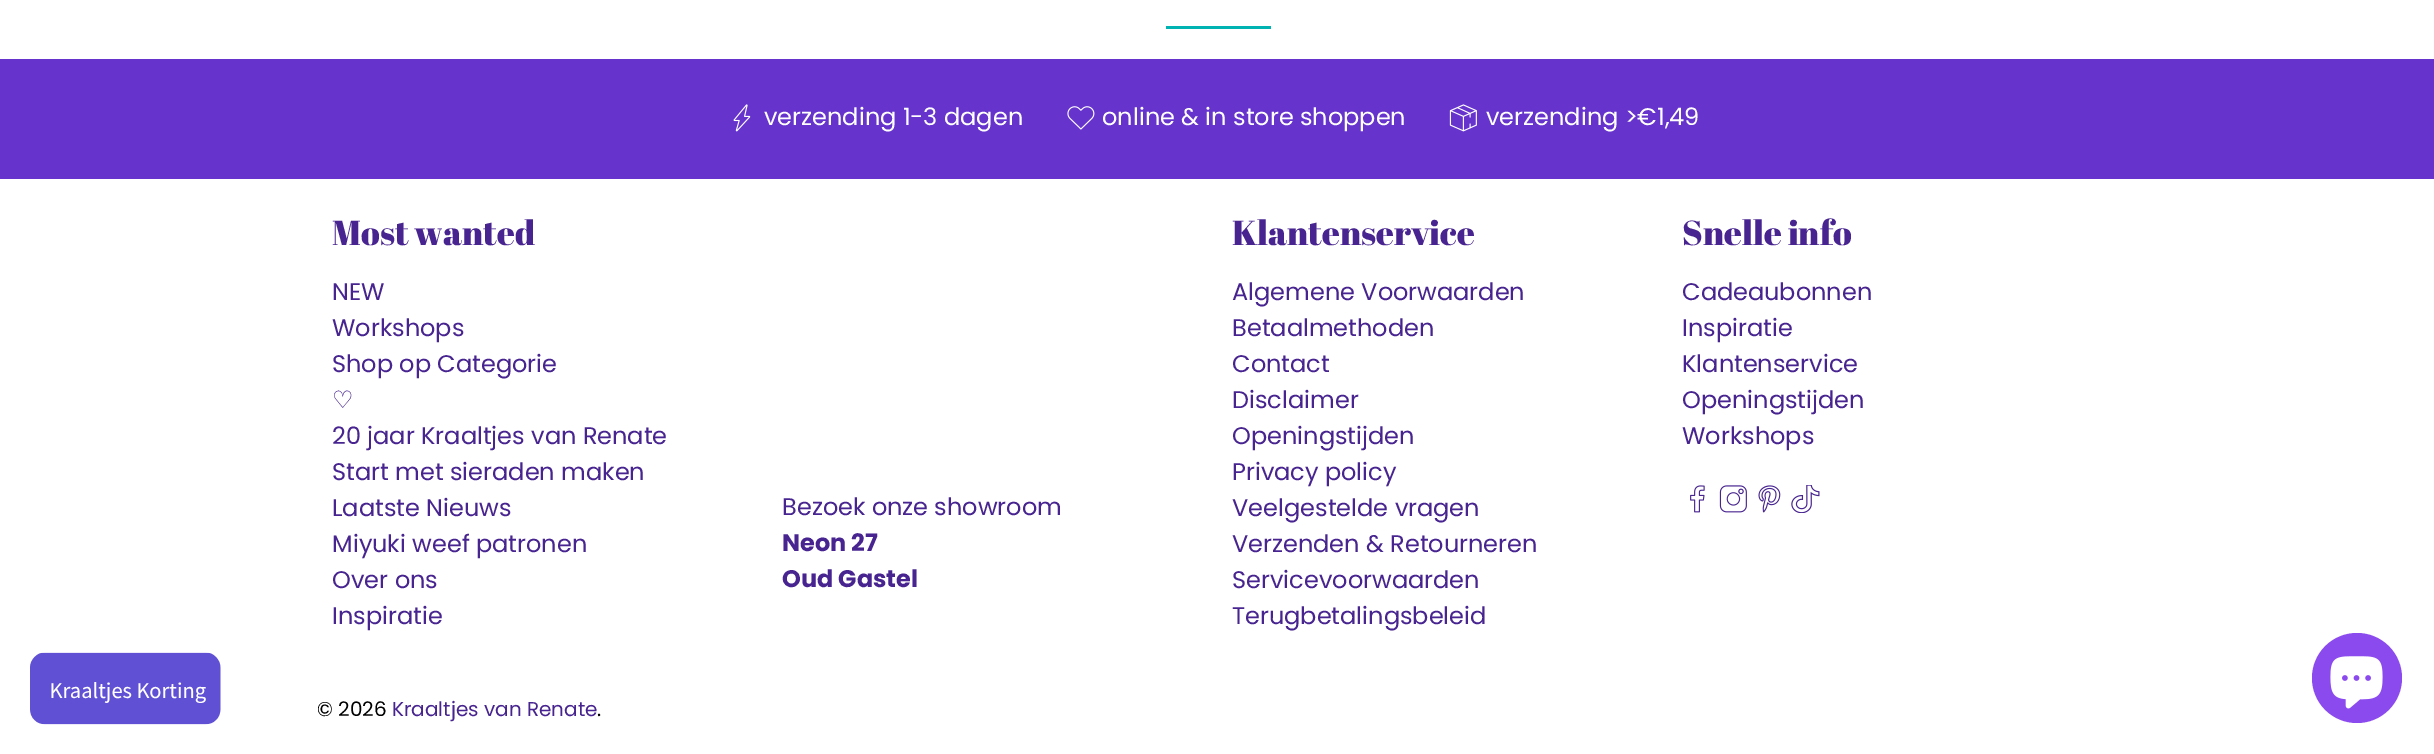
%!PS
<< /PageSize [2434 754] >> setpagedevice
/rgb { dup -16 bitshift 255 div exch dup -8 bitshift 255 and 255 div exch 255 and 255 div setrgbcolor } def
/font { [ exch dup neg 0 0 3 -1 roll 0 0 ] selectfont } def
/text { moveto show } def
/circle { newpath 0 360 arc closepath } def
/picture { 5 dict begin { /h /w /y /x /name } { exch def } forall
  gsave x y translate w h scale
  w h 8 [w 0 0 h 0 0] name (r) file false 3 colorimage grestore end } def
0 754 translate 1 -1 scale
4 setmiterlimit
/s1 { /Poppins-Regular 24 font 16#FFFFFF rgb } def
/s2 { /AbrilFatface-Regular 34.5 font 16#47248F rgb } def
/s3 { /Poppins-Regular 24 font 16#47248F rgb } def
/s4 { /DejaVuSans-Regular 24 font 16#47248F rgb } def
/s5 { /Poppins-Bold 24 font 16#47248F rgb } def
/s6 { /Poppins-Regular 20 font 16#000000 rgb } def
/s7 { /Poppins-Regular 20 font 16#47248F rgb } def
16#FFFFFF rgb
0 0 2434 754 rectfill
16#00B3B3 rgb
1166 26 105 3 rectfill
16#6633CC rgb
0 59 2434 120 rectfill
(pic1.raw) 733 104 18 28 picture
s1
(verzending 1-3 dagen) 764 125 text
(pic2.raw) 1067 106 28 24 picture
(online & in store shoppen) 1102 125 text
(pic3.raw) 1449 104 28 28 picture
(verzending >€1,49) 1486 125 text
(pic4.raw) 30 652 191 73 picture
s2
(Most wanted) 332 245 text
s3
(NEW) 332 300 text
(Workshops) 332 336 text
(Shop op Categorie) 332 372 text
s4
(♡) 332 408 text
s3
(20 jaar Kraaltjes van Renate) 332 444 text
(Start met sieraden maken) 332 480 text
(Laatste Nieuws) 332 516 text
(Miyuki weef patronen) 332 552 text
(Over ons) 332 588 text
(Inspiratie) 332 624 text
(Bezoek onze showroom) 782 515 text
s5
(Neon 27) 782 551 text
(Oud Gastel) 782 587 text
s2
(Klantenservice) 1232 245 text
s3
(Algemene Voorwaarden) 1232 300 text
(Betaalmethoden) 1232 336 text
(Contact) 1232 372 text
(Disclaimer) 1232 408 text
(Openingstijden) 1232 444 text
(Privacy policy) 1232 480 text
(Veelgestelde vragen) 1232 516 text
(Verzenden & Retourneren) 1232 552 text
(Servicevoorwaarden) 1232 588 text
(Terugbetalingsbeleid) 1232 624 text
s2
(Snelle info) 1682 245 text
s3
(Cadeaubonnen) 1682 300 text
(Inspiratie) 1682 336 text
(Klantenservice) 1682 372 text
(Openingstijden) 1682 408 text
(Workshops) 1682 444 text
(pic5.raw) 1690 485 15 28 picture
(pic6.raw) 1719 485 28 28 picture
(pic7.raw) 1758 485 23 28 picture
(pic8.raw) 1791 485 29 28 picture
s6
(© 2026) 317 716 text
s7
(Kraaltjes van Renate) 392 716 text
s6
(.) 597 716 text
16#8B4AED rgb
2357 678 45 circle fill
(pic9.raw) 2330 656 53 53 picture
showpage
